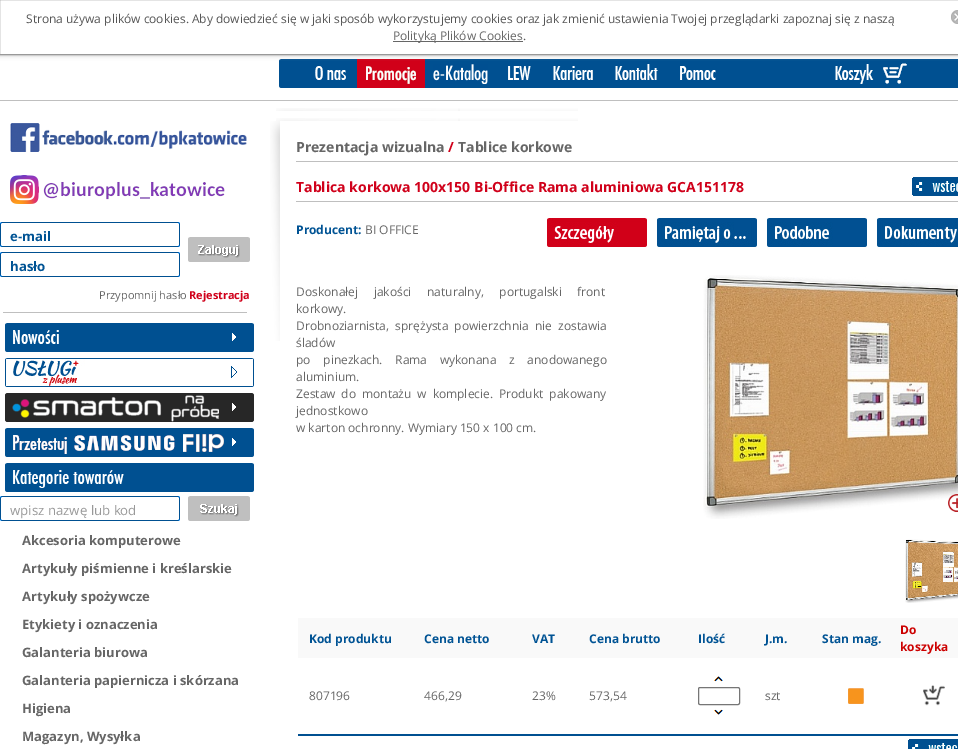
%!PS
<< /PageSize [958 749] /PageUsesTransparency true >> setpagedevice
/rgb { dup -16 bitshift 255 div exch dup -8 bitshift 255 and 255 div exch 255 and 255 div setrgbcolor } def
/font { [ exch dup neg 0 0 3 -1 roll 0 0 ] selectfont } def
/text { moveto show } def
/alpha { dup .setfillconstantalpha .setstrokeconstantalpha } def
/roundrect { 5 dict begin { /r /h /w /y /x } { exch def } forall
  x r add y moveto x w add y 2 copy h add r arct x w add y h add x 1 index r arct
  x y h add x y r arct x y 2 copy exch w add exch r arct closepath end } def
/shadow { 12 dict begin { /a /b /q /h /w /y /x } { exch def } forall gsave /was 0 def
  9 -2 -9 { dup b mul 4 div /e exch def 1 sub .425 mul 2.718 exch exp 1 add a .99 .min exch div /now exch def
    1 1 now sub 1 was sub div sub alpha /was now def
    w h .min e 2 mul add 0 gt { x e sub y e sub w e 2 mul add h e 2 mul add
      q e add b .6 mul add w h .min 2 div e add .min 0 .max roundrect fill } if } for grestore end } def
/picture { 5 dict begin { /h /w /y /x /name } { exch def } forall
  gsave x y translate w h scale
  w h 8 [w 0 0 h 0 0] name (r) file false 3 colorimage grestore end } def
0 .pushpdf14devicefilter
0 749 translate 1 -1 scale
4 setmiterlimit
/s1 { /OpenSans-Regular 12 font 16#555555 rgb } def
/s2 { /OpenSans-Regular 12 font 16#666666 rgb } def
/s3 { /OpenSans-Bold 13.25 font 16#005394 rgb } def
/s4 { /OpenSans-Regular 11 font 16#666666 rgb } def
/s5 { /OpenSans-Bold 11 font 16#D0001A rgb } def
/s6 { /OpenSans-Regular 13.25 font 16#999999 rgb } def
/s7 { /OpenSans-Bold 13 font 16#666666 rgb } def
/s8 { /OpenSans-Bold 14 font 16#666666 rgb } def
/s9 { /OpenSans-Bold 14 font 16#D0001A rgb } def
/s10 { /OpenSans-Bold 12 font 16#005394 rgb } def
/s11 { /OpenSans-Bold 12 font 16#CC0000 rgb } def
16#FFFFFF rgb
0 0 958 749 rectfill
16#005091 rgb
281 59 677 29 rectfill
(pic2.raw) 279 59 2 29 picture
(pic4.raw) 357 59 68 29 picture
(pic10.raw) 835 63 72 21 picture
16#BBBBBB rgb
-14 -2 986 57 6 2.5 1 shadow
16#FFFFFF rgb
-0.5 -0.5 moveto 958.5 -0.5 lineto 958.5 54.5 lineto -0.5 54.5 lineto closepath gsave fill grestore
16#999999 rgb
stroke
s1
(Strona używa plików cookies. Aby dowiedzieć się w jaki sposób wykorzystujemy cookies oraz jak zmienić ustawienia Twojej przeglądarki zapoznaj się z naszą) 26 23 text
16#666666 rgb
393 41 130 1 rectfill
(Polityką Plików Cookies) 393 40 text
s1
(.) 523 40 text
(pic1.raw) 951 10 7 14 picture
(pic3.raw) 315 66 31 14 picture
(pic5.raw) 433 64 55 20 picture
(pic6.raw) 508 66 23 14 picture
(pic7.raw) 553 66 40 14 picture
(pic8.raw) 615 64 43 16 picture
(pic9.raw) 680 66 36 14 picture
16#BFBFBF rgb
0 100 958 1 rectfill
(pic11.raw) 10 123 237 29 picture
(pic12.raw) 10 175 215 29 picture
(pic13.raw) 0 222 180 25 picture
s3
(e-mail) 10 241 text
(pic14.raw) 188 237 62 25 picture
(pic13.raw) 0 252 180 25 picture
(hasło) 10 271 text
s4
(Przypomnij hasło) 99 299 text
s5
(Rejestracja) 189 299 text
16#BFBFBF rgb
3 312 244 1 rectfill
(pic15.raw) 5 323 249 29 picture
(pic16.raw) 232 333 4 8 picture
(pic17.raw) 5 358 249 29 picture
(pic18.raw) 232 368 4 8 picture
(pic19.raw) 5 393 249 29 picture
(pic20.raw) 232 403 4 8 picture
(pic21.raw) 5 428 249 29 picture
(pic22.raw) 5 463 249 29 picture
(pic13.raw) 0 496 180 25 picture
s6
(wpisz nazwę lub kod) 10 515 text
(pic23.raw) 188 496 62 25 picture
s7
(Akcesoria komputerowe) 22 545 text
(Artykuły piśmienne i kreślarskie) 22 573 text
(Artykuły spożywcze) 22 601 text
(Etykiety i oznaczenia) 22 629 text
(Galanteria biurowa) 22 657 text
(Galanteria papiernicza i skórzana) 22 685 text
(Higiena) 22 713 text
(Magazyn, Wysyłka) 22 741 text
(pic24.raw) 276 108 302 3 picture
(pic24.raw) 276 118 302 3 picture
(pic25.raw) 270 121 10 220 picture
16#BFBFBF rgb
296 161 662 1 rectfill
s8
(Prezentacja wizualna) 296 152 text
s9
(/) 448 152 text
s8
(Tablice korkowe) 458 152 text
16#BFBFBF rgb
296 201 662 1 rectfill
s9
(Tablica korkowa 100x150 Bi-Office Rama aluminiowa GCA151178) 296 192 text
(pic26.raw) 912 177 46 19 picture
s10
(Producent:) 296 234 text
s2
(BI OFFICE) 365 234 text
(pic27.raw) 547 218 100 29 picture
(pic28.raw) 657 218 100 29 picture
(pic29.raw) 767 218 100 29 picture
(pic30.raw) 877 218 81 29 picture
296 296 moveto 12.5 0 32 (Doskonałej jakości naturalny, portugalski front) widthshow
(korkowy.) 296 313 text
296 330 moveto 3 0 32 (Drobnoziarnista, sprężysta powierzchnia nie zostawia) widthshow
(śladów) 296 347 text
296 364 moveto 9.5 0 32 (po pinezkach. Rama wykonana z anodowanego) widthshow
(aluminium.) 296 381 text
296 398 moveto 2.75 0 32 (Zestaw do montażu w komplecie. Produkt pakowany) widthshow
(jednostkowo) 296 415 text
(w karton ochronny. Wymiary 150 x 100 cm.) 296 432 text
(pic31.raw) 703 275 255 244 picture
(pic32.raw) 948 494 10 18 picture
(pic33.raw) 905 539 53 64 picture
16#005091 rgb
298 734 660 2 rectfill
16#F9F9F9 rgb
298 618 660 40 rectfill
s10
(Kod produktu) 309 643 text
(Cena netto) 424 643 text
(VAT) 532 643 text
(Cena brutto) 589 643 text
(Ilość) 698 643 text
(J.m.) 765 643 text
(Stan mag.) 822 643 text
s11
(Do) 900 634 text
(koszyka) 900 651 text
s2
(807196) 309 700 text
(466,29) 424 700 text
(23%) 532 700 text
(573,54) 589 700 text
(pic34.raw) 714 676 9 6 picture
16#767676 rgb
698.5 687.5 41 17 1.5 roundrect stroke
(pic35.raw) 714 709 9 6 picture
s2
(szt) 765 700 text
(pic36.raw) 848 688 16 16 picture
(pic37.raw) 923 685 22 21 picture
(pic38.raw) 908 739 50 10 picture
.poppdf14devicefilter showpage
